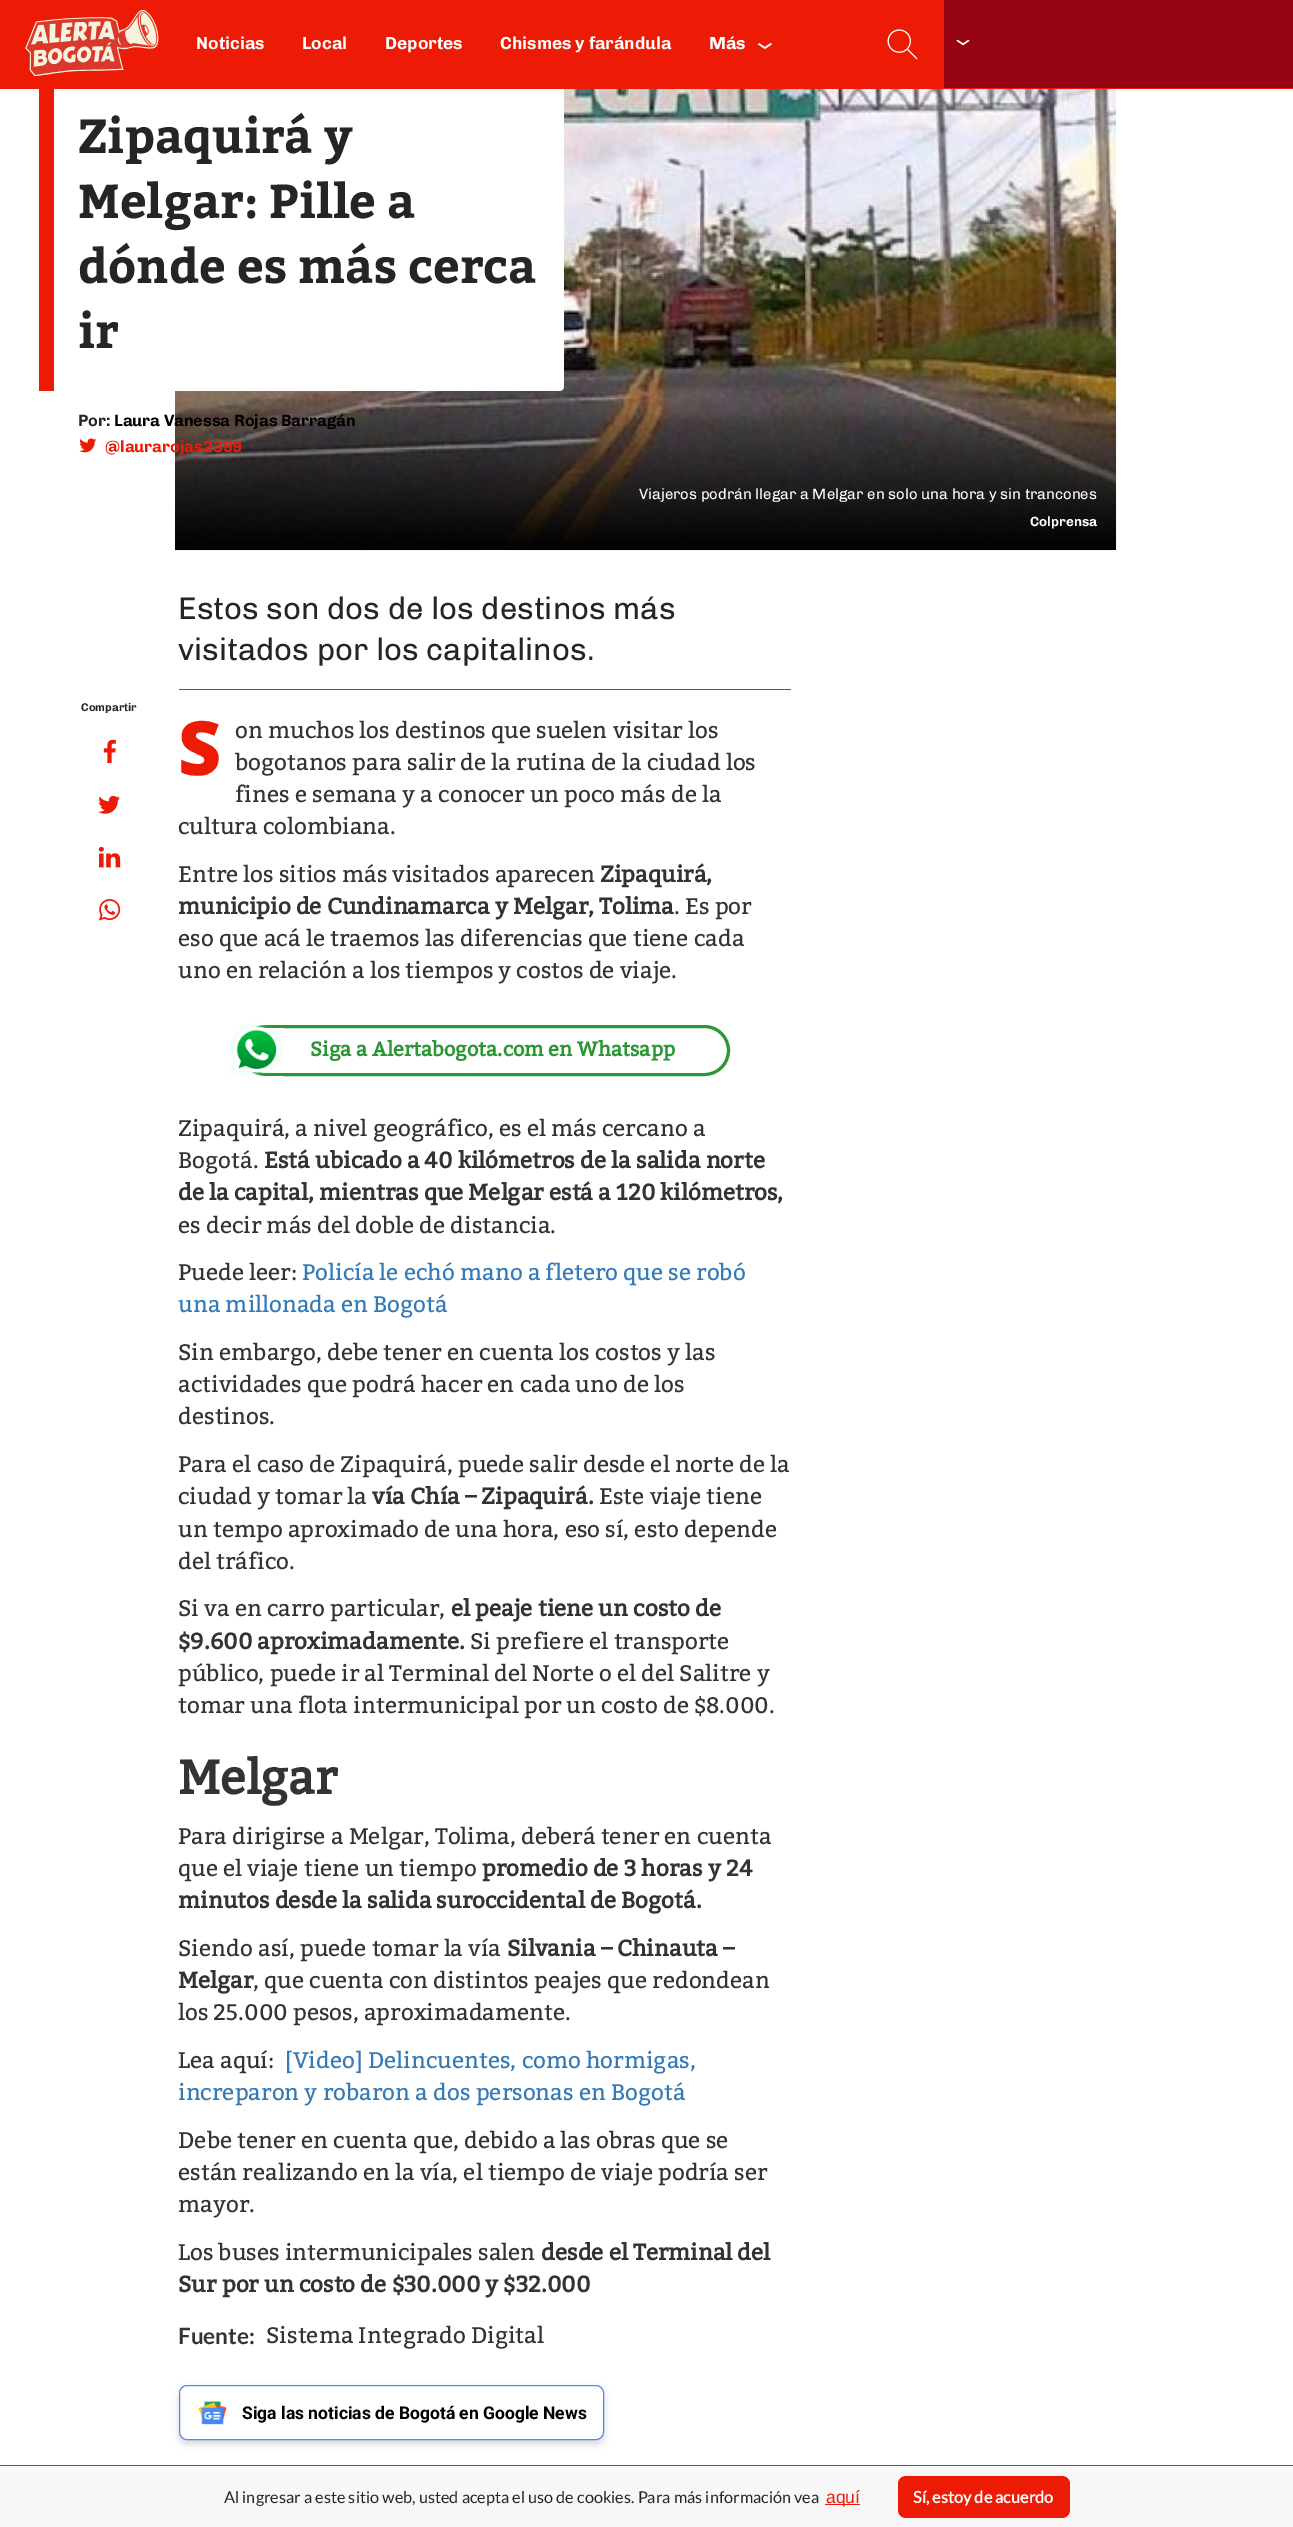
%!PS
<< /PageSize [1293 2527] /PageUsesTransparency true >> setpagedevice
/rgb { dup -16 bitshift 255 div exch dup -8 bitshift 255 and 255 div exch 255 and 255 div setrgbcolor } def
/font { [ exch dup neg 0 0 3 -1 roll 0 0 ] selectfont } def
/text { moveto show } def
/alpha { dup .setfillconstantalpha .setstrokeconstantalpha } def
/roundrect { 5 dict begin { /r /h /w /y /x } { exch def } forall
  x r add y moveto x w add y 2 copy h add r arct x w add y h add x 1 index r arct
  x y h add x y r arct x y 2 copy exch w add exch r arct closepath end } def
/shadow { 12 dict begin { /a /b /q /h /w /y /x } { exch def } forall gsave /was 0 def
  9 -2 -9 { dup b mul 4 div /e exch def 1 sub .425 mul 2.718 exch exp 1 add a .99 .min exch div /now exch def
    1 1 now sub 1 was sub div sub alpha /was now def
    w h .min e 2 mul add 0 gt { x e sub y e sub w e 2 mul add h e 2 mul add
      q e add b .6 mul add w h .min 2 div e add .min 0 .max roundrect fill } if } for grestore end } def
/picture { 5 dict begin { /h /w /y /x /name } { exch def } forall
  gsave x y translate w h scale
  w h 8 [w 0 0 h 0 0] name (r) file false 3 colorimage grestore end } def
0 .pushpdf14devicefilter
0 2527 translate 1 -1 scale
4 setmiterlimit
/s1 { /Chivo-Bold 17.5 font 16#FFFFFF rgb } def
/s2 { /Kadwa-Bold 47.5 font 16#252525 rgb } def
/s3 { /Chivo-Bold 16.25 font 16#252525 rgb } def
/s4 { /Chivo-Bold 16.25 font 16#000000 rgb } def
/s5 { /Chivo-Bold 16.25 font 16#ED1B06 rgb } def
/s6 { /Chivo-Regular 15 font 16#FFFFFF rgb } def
/s7 { /Chivo-Bold 13.5 font 16#FFFFFF rgb } def
/s8 { /Chivo-Bold 11.25 font 16#252525 rgb } def
/s9 { /Chivo-Regular 31.25 font 16#252525 rgb } def
/s10 { /NotoSans-Black 75 font 16#ED1B06 rgb } def
/s11 { /Kadwa-Regular 22.5 font 16#333333 rgb } def
/s12 { /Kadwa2-Bold 22.5 font 16#333333 rgb } def
/s13 { /Kadwa2-Bold 20 font 16#2B9634 rgb } def
/s14 { /Kadwa-Regular 22.5 font 16#337AB7 rgb } def
/s15 { /Kadwa2-Bold 47.5 font 16#333333 rgb } def
/s16 { /Lato-Bold 22.5 font 16#333333 rgb } def
/s17 { /Roboto-Bold 17.5 font 16#000000 rgb } def
/s18 { /Lato-Regular 16.25 font 16#252525 rgb } def
/s19 { /LiberationSans-Regular 17.5 font 16#ED1B06 rgb } def
/s20 { /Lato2-Bold 16.25 font 16#FFFFFF rgb } def
16#FFFFFF rgb
0 0 1293 2527 rectfill
(pic5.raw) 175 89 942 462 picture
39 81 moveto 559 81 lineto 562 81 564 83 564 86 curveto 564 386 lineto 564 389 562 391 559 391 curveto 39 391 lineto closepath fill
16#ED1B06 rgb
0 0 1293 89 rectfill
(pic1.raw) 25 10 134 66 picture
s1
(Noticias) 196 49 text
(Local) 302 49 text
(Deportes) 385 49 text
(Chismes y farándula) 500 49 text
(Más) 709 49 text
(pic2.raw) 757 43 16 7 picture
(pic3.raw) 887 29 31 31 picture
16#ED1B06 rgb
39 89 15 302 rectfill
s2
(Zipaquirá y) 78 153 text
(Melgar: Pille a) 78 218 text
(dónde es más cerca) 78 283 text
(ir) 78 348 text
s3
(Por:) 78 426 text
s4
(Laura Vanessa Rojas Barragán) 114 426 text
(pic4.raw) 79 438 18 15 picture
s5
(@laurarojas2399) 105 452 text
s6
(Viajeros podrán llegar a Melgar en solo una hora y sin trancones) 639 499 text
s7
(Colprensa) 1030 526 text
s8
(Compartir) 81 711 text
(pic6.raw) 103 739 13 25 picture
(pic7.raw) 98 795 22 19 picture
(pic8.raw) 98 846 23 22 picture
(pic9.raw) 98 899 23 22 picture
16#ED1B06 rgb
179 689 612 1 rectfill
s9
(Estos son dos de los destinos más) 178 619 text
(visitados por los capitalinos.) 178 660 text
s10
(S) 178 775 text
s11
(on muchos los destinos que suelen visitar los) 235 738 text
(bogotanos para salir de la rutina de la ciudad los) 235 770 text
(fines e semana y a conocer un poco más de la) 235 802 text
(cultura colombiana.) 178 834 text
(Entre los sitios más visitados aparecen) 178 882 text
s12
(Zipaquirá,) 600 882 text
(municipio de Cundinamarca y Melgar, Tolima) 178 914 text
s11
(. Es por) 674 914 text
(eso que acá le traemos las diferencias que tiene cada) 178 946 text
(uno en relación a los tiempos y costos de viaje.) 178 978 text
16#2B9634 rgb
3 setlinewidth
241.5 1026.5 487 48 24 roundrect stroke
(pic10.raw) 229 1022 55 55 picture
s13
(Siga a Alertabogota.com en Whatsapp) 310 1056 text
s11
(Zipaquirá, a nivel geográfico, es el más cercano a) 178 1136 text
(Bogotá.) 178 1168 text
s12
(Está ubicado a 40 kilómetros de la salida norte) 264 1168 text
(de la capital, mientras que Melgar está a 120 kilómetros,) 178 1200 text
s11
(es decir más del doble de distancia.) 178 1233 text
(Puede leer:) 178 1280 text
s14
(Policía le echó mano a fletero que se robó) 302 1280 text
(una millonada en Bogotá) 178 1312 text
s11
(Sin embargo, debe tener en cuenta los costos y las) 178 1360 text
(actividades que podrá hacer en cada uno de los) 178 1392 text
(destinos.) 178 1424 text
(Para el caso de Zipaquirá, puede salir desde el norte de la) 178 1472 text
(ciudad y tomar la) 178 1504 text
s12
(vía Chía – Zipaquirá.) 372 1504 text
s11
(Este viaje tiene) 599 1504 text
(un tempo aproximado de una hora, eso sí, esto depende) 178 1537 text
(del tráfico.) 178 1569 text
(Si va en carro particular,) 178 1616 text
s12
(el peaje tiene un costo de) 451 1616 text
($9.600 aproximadamente.) 178 1649 text
s11
(Si prefiere el transporte) 470 1649 text
(público, puede ir al Terminal del Norte o el del Salitre y) 178 1681 text
(tomar una flota intermunicipal por un costo de $8.000.) 178 1713 text
s15
(Melgar) 178 1794 text
s11
(Para dirigirse a Melgar, Tolima, deberá tener en cuenta) 178 1844 text
(que el viaje tiene un tiempo) 178 1876 text
s12
(promedio de 3 horas y 24) 482 1876 text
(minutos desde la salida suroccidental de Bogotá.) 178 1908 text
s11
(Siendo así, puede tomar la vía) 178 1956 text
s12
(Silvania – Chinauta –) 507 1956 text
(Melgar) 178 1988 text
s11
(, que cuenta con distintos peajes que redondean) 253 1988 text
(los 25.000 pesos, aproximadamente.) 178 2020 text
(Lea aquí:) 178 2068 text
s14
([Video] Delincuentes, como hormigas,) 285 2068 text
(increparon y robaron a dos personas en Bogotá) 178 2100 text
s11
(Debe tener en cuenta que, debido a las obras que se) 178 2148 text
(están realizando en la vía, el tiempo de viaje podría ser) 178 2180 text
(mayor.) 178 2212 text
(Los buses intermunicipales salen) 178 2260 text
s12
(desde el Terminal del) 541 2260 text
(Sur por un costo de $30.000 y $32.000) 178 2292 text
s16
(Fuente:) 178 2344 text
s11
(Sistema Integrado Digital) 266 2343 text
gsave
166 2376 moveto 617 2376 lineto 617 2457 lineto 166 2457 lineto closepath 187 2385 moveto 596 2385 lineto 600.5 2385 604 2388.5 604 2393 curveto 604 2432 lineto 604 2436.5 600.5 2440 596 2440 curveto 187 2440 lineto 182.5 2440 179 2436.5 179 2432 curveto 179 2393 lineto 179 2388.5 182.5 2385 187 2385 curveto closepath eoclip newpath
16#000000 rgb
179 2389 425 55 8 4 0.16 shadow
grestore
(pic11.raw) 198 2401 29 24 picture
16#4E8CF5 rgb
1 setlinewidth
179.5 2385.5 424 54 7.5 roundrect stroke
s17
(Siga las noticias de Bogotá en Google News) 242 2419 text
16#970514 rgb
944 0 349 88 rectfill
(pic12.raw) 956 39 14 7 picture
16#F7F7F7 rgb
0 2466 1293 61 rectfill
16#ED1B06 rgb
0 2465 1293 1 rectfill
s18
(Al ingresar a este sitio web, usted acepta el uso de cookies. Para más información vea) 224 2503 text
16#ED1B06 rgb
825 2504 35 1 rectfill
s19
(aquí) 826 2503 text
898 2476 172 42 8 roundrect fill
s20
(Sí, estoy de acuerdo) 913 2503 text
.poppdf14devicefilter showpage
